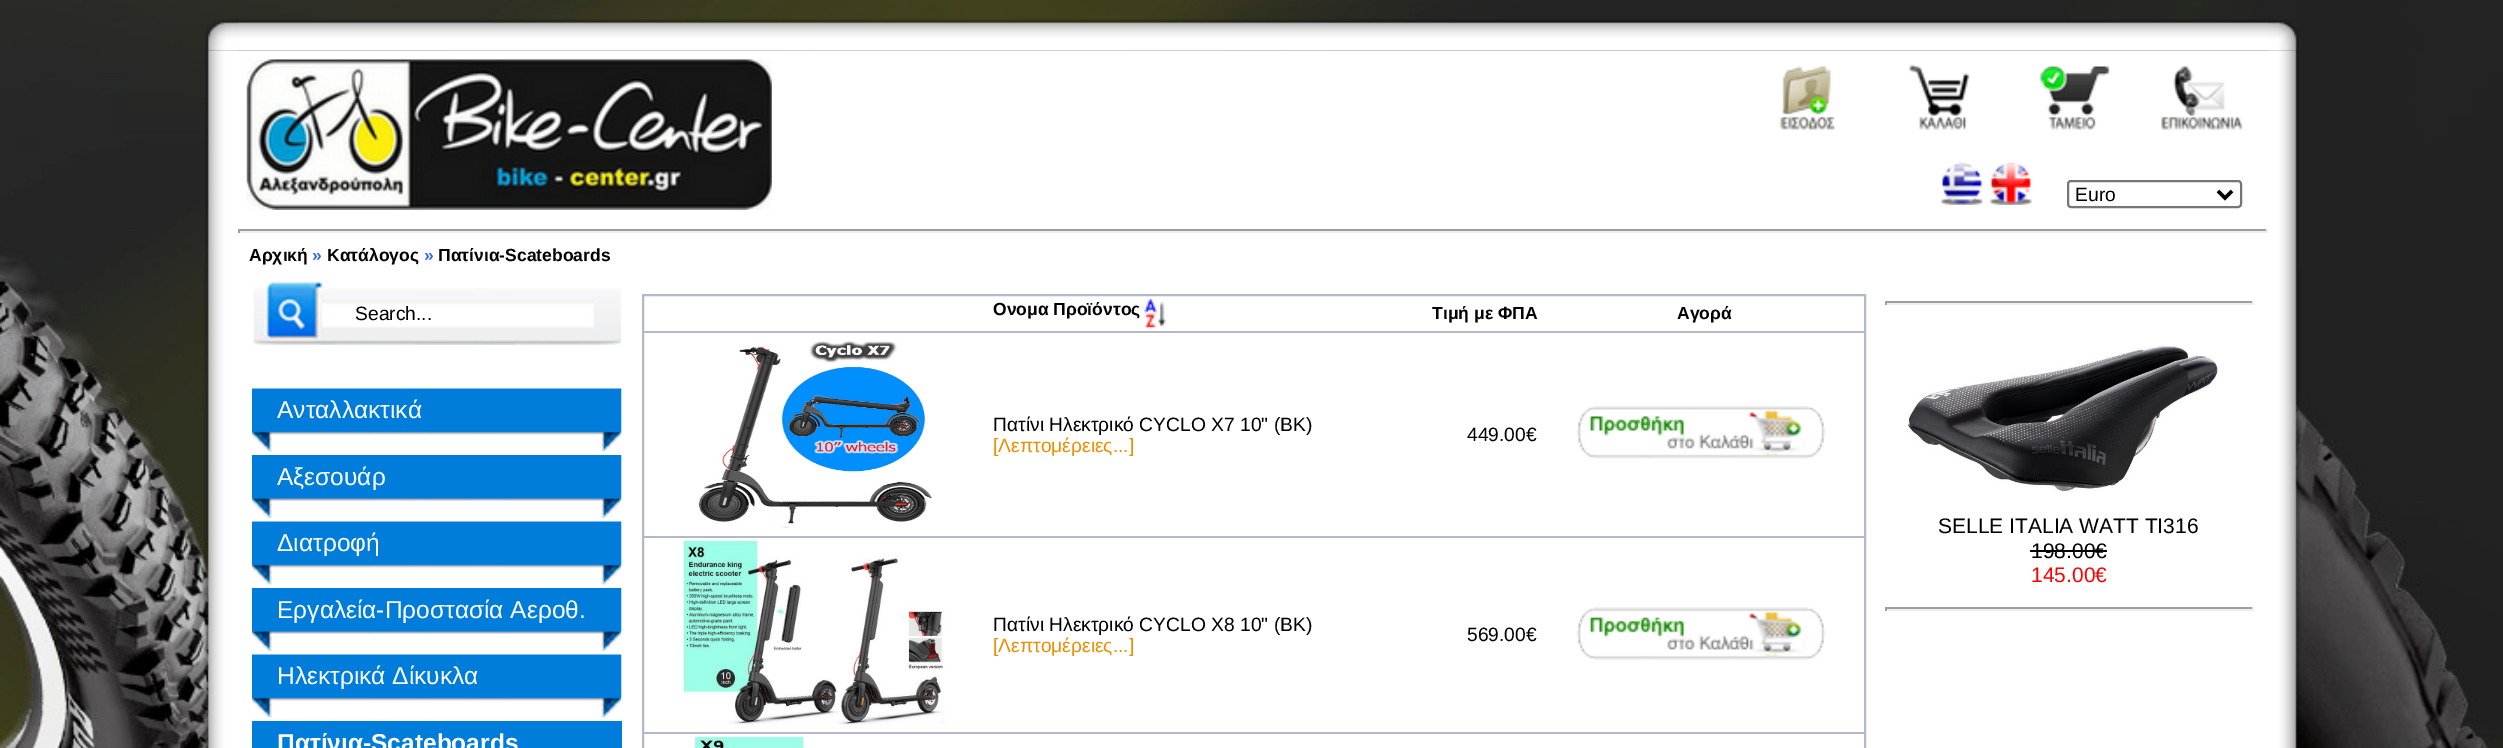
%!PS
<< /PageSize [2503 748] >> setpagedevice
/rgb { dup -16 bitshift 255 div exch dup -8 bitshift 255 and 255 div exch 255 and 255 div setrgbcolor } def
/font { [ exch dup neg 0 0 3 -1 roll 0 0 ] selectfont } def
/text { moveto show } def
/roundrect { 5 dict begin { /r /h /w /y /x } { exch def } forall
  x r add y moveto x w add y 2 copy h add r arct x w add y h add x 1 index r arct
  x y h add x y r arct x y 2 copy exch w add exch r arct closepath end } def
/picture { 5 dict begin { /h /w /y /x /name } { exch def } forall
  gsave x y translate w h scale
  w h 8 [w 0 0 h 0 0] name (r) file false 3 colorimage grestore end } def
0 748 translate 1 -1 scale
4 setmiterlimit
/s1 { /LiberationSans-Regular 19.25 font 16#000000 rgb } def
/s2 { /LiberationSans-Bold 17.5 font 16#000000 rgb } def
/s3 { /LiberationSans-Bold 17.5 font 16#3366FF rgb } def
/s4 { /LiberationSans-Regular 24.5 font 16#FFFFFF rgb } def
/s5 { /LiberationSans-Bold 24.5 font 16#FFFFFF rgb } def
/s6 { /LiberationSans-Regular 19.25 font 16#EC8E00 rgb } def
/s7 { /LiberationSans-Regular 21 font 16#000000 rgb } def
/s8 { /LiberationSans-Regular 21 font 16#FF0000 rgb } def
16#FFFFFF rgb
0 0 2503 748 rectfill
(pic1.raw) 0 0 2503 748 picture
(pic5.raw) 205 50 33 216 picture
(pic2.raw) 205 19 33 32 picture
(pic3.raw) 238 19 2030 32 picture
(pic13.raw) 2268 50 31 216 picture
(pic4.raw) 2268 20 31 31 picture
238 51 2030 697 rectfill
(pic6.raw) 246 59 526 151 picture
(pic7.raw) 1779 66 57 64 picture
(pic8.raw) 1909 64 61 66 picture
(pic9.raw) 2040 66 70 64 picture
(pic10.raw) 2161 66 82 64 picture
(pic11.raw) 1940 162 43 43 picture
(pic12.raw) 1989 162 43 43 picture
16#767676 rgb
2 setlinewidth
2068 181 173 26 3 roundrect stroke
16#000000 rgb
3.5 setlinewidth
2218 191 moveto 2225 198 lineto 2232 191 lineto stroke
s1
(Euro) 2075 201 text
16#9F9F9F rgb
238 229 2030 2 rectfill
16#EEEEEE rgb
2266 229 2 4 rectfill
238 231 2030 2 rectfill
16#9F9F9F rgb
238 229 2 4 rectfill
s2
(Αρχική) 249 261 text
s3
(») 312 261 text
s2
(Κατάλογος) 327 261 text
s3
(») 424 261 text
s2
(Πατίνια-Scateboards) 438 261 text
(pic14.raw) 203 266 35 482 picture
(pic15.raw) 336 288 286 57 picture
(pic16.raw) 253 281 83 64 picture
s1
(Search...) 355 320 text
(pic17.raw) 252 388 370 64 picture
s4
(Ανταλλακτικά) 277 418 text
(pic18.raw) 252 455 370 63 picture
(Αξεσουάρ) 277 485 text
(pic17.raw) 252 521 370 64 picture
(Διατροφή) 277 551 text
(pic18.raw) 252 588 370 63 picture
(Εργαλεία-Προστασία Αεροθ.) 277 618 text
(pic17.raw) 252 654 370 64 picture
(Ηλεκτρικά Δίκυκλα) 277 684 text
16#007CDB rgb
252 721 370 27 rectfill
s5
(Πατίνια-Scateboards) 277 751 text
16#B6B7CB rgb
2 setlinewidth
643 295 1222 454 rectstroke
s2
(Ονομα Προϊόντος) 993 315 text
(pic19.raw) 1144 299 22 29 picture
(Τιμή με ΦΠΑ) 1432 319 text
(Αγορά) 1677 319 text
16#B6B7CB rgb
644 331 1220 2 rectfill
644 536 1220 2 rectfill
(pic20.raw) 698 341 234 187 picture
s1
(Πατίνι Ηλεκτρικό CYCLO X7 10" \(BK\)) 993 431 text
s6
([Λεπτομέρειες...]) 993 452 text
s1
(449.00€) 1467 441 text
(pic21.raw) 1576 406 250 53 picture
16#B6B7CB rgb
644 732 1220 2 rectfill
(pic22.raw) 682 540 263 185 picture
s1
(Πατίνι Ηλεκτρικό CYCLO X8 10" \(BK\)) 993 631 text
s6
([Λεπτομέρειες...]) 993 652 text
s1
(569.00€) 1467 641 text
(pic23.raw) 1576 607 250 53 picture
(pic24.raw) 694 736 113 12 picture
16#9F9F9F rgb
1885 301 369 2 rectfill
16#EEEEEE rgb
2252 301 2 4 rectfill
1885 303 369 2 rectfill
16#9F9F9F rgb
1885 301 2 4 rectfill
(pic25.raw) 1907 345 312 147 picture
s7
(SELLE ITALIA WATT TI316) 1938 533 text
(198.00€) 2031 558 text
2030 550 77 2 rectfill
s8
(145.00€) 2031 582 text
16#9F9F9F rgb
1885 607 369 2 rectfill
16#EEEEEE rgb
2252 607 2 4 rectfill
1885 609 369 2 rectfill
16#9F9F9F rgb
1885 607 2 4 rectfill
(pic26.raw) 2268 266 33 482 picture
showpage
